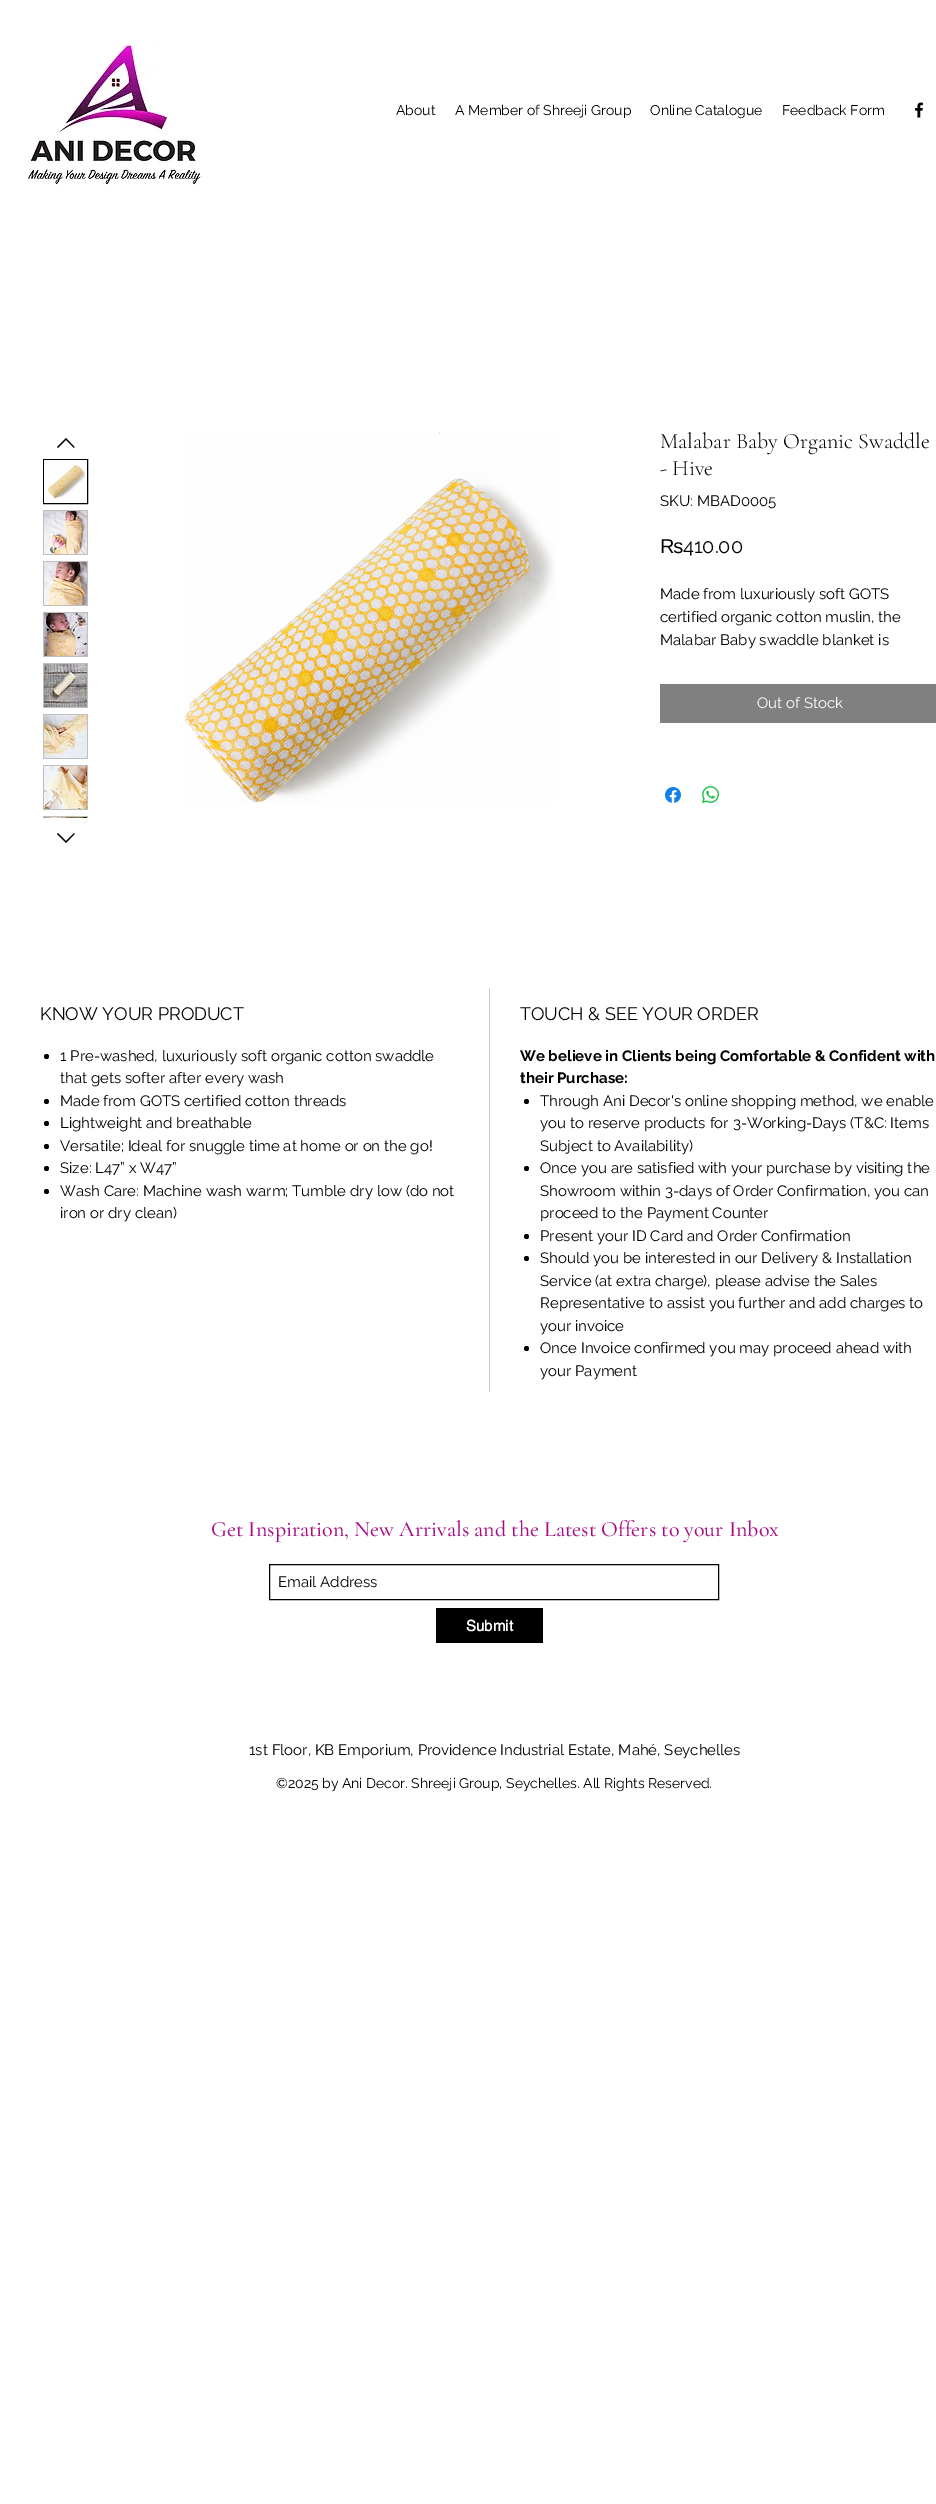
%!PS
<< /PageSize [936 2504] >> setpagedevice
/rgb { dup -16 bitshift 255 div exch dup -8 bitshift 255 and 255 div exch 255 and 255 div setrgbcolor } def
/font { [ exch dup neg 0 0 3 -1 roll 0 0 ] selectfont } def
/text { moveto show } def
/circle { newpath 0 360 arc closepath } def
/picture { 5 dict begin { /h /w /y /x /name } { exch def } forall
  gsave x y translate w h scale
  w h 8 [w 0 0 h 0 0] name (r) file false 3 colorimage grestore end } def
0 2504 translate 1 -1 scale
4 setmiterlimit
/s1 { /Raleway-Regular 14 font 16#000000 rgb } def
/s2 { /CormorantGaramond-Light 22 font 16#000000 rgb } def
/s3 { /Raleway-Regular 15 font 16#000000 rgb } def
/s4 { /LiberationSans-Regular 20 font 16#000000 rgb } def
/s5 { /Raleway-Regular 20 font 16#000000 rgb } def
/s6 { /Raleway-Regular 15 font 16#FFFFFF rgb } def
/s7 { /Raleway-Regular 18 font 16#000000 rgb } def
/s8 { /Raleway-Bold 15 font 16#000000 rgb } def
/s9 { /CormorantGaramond-Medium 22 font 16#A60C84 rgb } def
/s10 { /helvetica-Bold 15 font 16#FFFFFF rgb } def
16#FFFFFF rgb
0 0 936 2504 rectfill
(pic1.raw) 28 43 176 144 picture
s1
(About) 396 115 text
(A Member of Shreeji Group) 455 115 text
(Online Catalogue) 650 115 text
(Feedback Form) 782 115 text
(pic2.raw) 915 102 9 16 picture
66 438 moveto 74.5 447 lineto 74 448 lineto 66 440 lineto 58 448 lineto 57 447 lineto closepath eofill
43.5 459.5 44 44 rectstroke
(pic3.raw) 44 460 43 43 picture
16#BFBFBF rgb
43 510 45 45 rectfill
(pic4.raw) 44 511 43 43 picture
43 561 45 45 rectfill
(pic5.raw) 44 562 43 43 picture
43 612 45 45 rectfill
(pic6.raw) 44 613 43 43 picture
43 663 45 45 rectfill
(pic7.raw) 44 664 43 43 picture
43 714 45 45 rectfill
(pic8.raw) 44 715 43 43 picture
43 765 45 45 rectfill
(pic9.raw) 44 766 43 43 picture
43 816 45 2 rectfill
(pic10.raw) 44 817 43 1 picture
16#000000 rgb
74 833 moveto 74.5 834 lineto 66 843 lineto 57 834 lineto 58 833 lineto 66 841 lineto closepath eofill
(pic11.raw) 184 432 372 372 picture
s2
(Malabar Baby Organic Swaddle) 660 448 text
(- Hive) 660 475 text
s3
(SKU: MBAD0005) 660 506 text
s4
(₨) 660 553 text
s5
(410.00) 683 553 text
s3
(Made from luxuriously soft GOTS) 660 599 text
(certified organic cotton muslin, the) 660 622 text
(Malabar Baby swaddle blanket is) 660 645 text
16#808080 rgb
660 684 276 39 rectfill
s6
(Out of Stock) 757 708 text
(pic12.raw) 665 787 16 16 picture
(pic13.raw) 702 786 17 17 picture
16#CCCCCC rgb
489 988 1 404 rectfill
s7
(KNOW YOUR PRODUCT) 40 1020 text
46.5 1056.5 2.5 circle fill
s3
(1 Pre-washed, luxuriously soft organic cotton swaddle) 60 1061 text
(that gets softer after every wash) 60 1083 text
46.5 1101.5 2.5 circle fill
(Made from GOTS certified cotton threads) 60 1106 text
46.5 1123.5 2.5 circle fill
(Lightweight and breathable) 60 1128 text
46.5 1146.5 2.5 circle fill
(Versatile; Ideal for snuggle time at home or on the go!) 60 1151 text
46.5 1168.5 2.5 circle fill
(Size: L47” x W47”) 60 1173 text
46.5 1191.5 2.5 circle fill
(Wash Care: Machine wash warm; Tumble dry low \(do not) 60 1196 text
(iron or dry clean\)) 60 1218 text
s7
(TOUCH & SEE YOUR ORDER) 520 1020 text
s8
(We believe in Clients being Comfortable & Confident with) 520 1061 text
(their Purchase:) 520 1083 text
526.5 1101.5 2.5 circle fill
s3
(Through Ani Decor's online shopping method, we enable) 540 1106 text
(you to reserve products for 3-Working-Days \(T&C: Items) 540 1128 text
(Subject to Availability\)) 540 1151 text
526.5 1168.5 2.5 circle fill
(Once you are satisfied with your purchase by visiting the) 540 1173 text
(Showroom within 3-days of Order Confirmation, you can) 540 1196 text
(proceed to the Payment Counter) 540 1218 text
526.5 1236.5 2.5 circle fill
(Present your ID Card and Order Confirmation) 540 1241 text
526.5 1258.5 2.5 circle fill
(Should you be interested in our Delivery & Installation) 540 1263 text
(Service \(at extra charge\), please advise the Sales) 540 1286 text
(Representative to assist you further and add charges to) 540 1308 text
(your invoice) 540 1331 text
526.5 1348.5 2.5 circle fill
(Once Invoice confirmed you may proceed ahead with) 540 1353 text
(your Payment) 540 1376 text
s9
(Get Inspiration, New Arrivals and the Latest Offers to your Inbox) 211 1536 text
16#000000 rgb
269.5 1564.5 449 35 rectstroke
s3
(Email Address) 278 1587 text
436 1608 107 35 rectfill
s10
(Submit) 466 1631 text
s3
(1st Floor, KB Emporium, Providence Industrial Estate, Mahé, Seychelles) 249 1755 text
s1
(©2025 by Ani Decor. Shreeji Group, Seychelles. All Rights Reserved.) 276 1788 text
showpage
